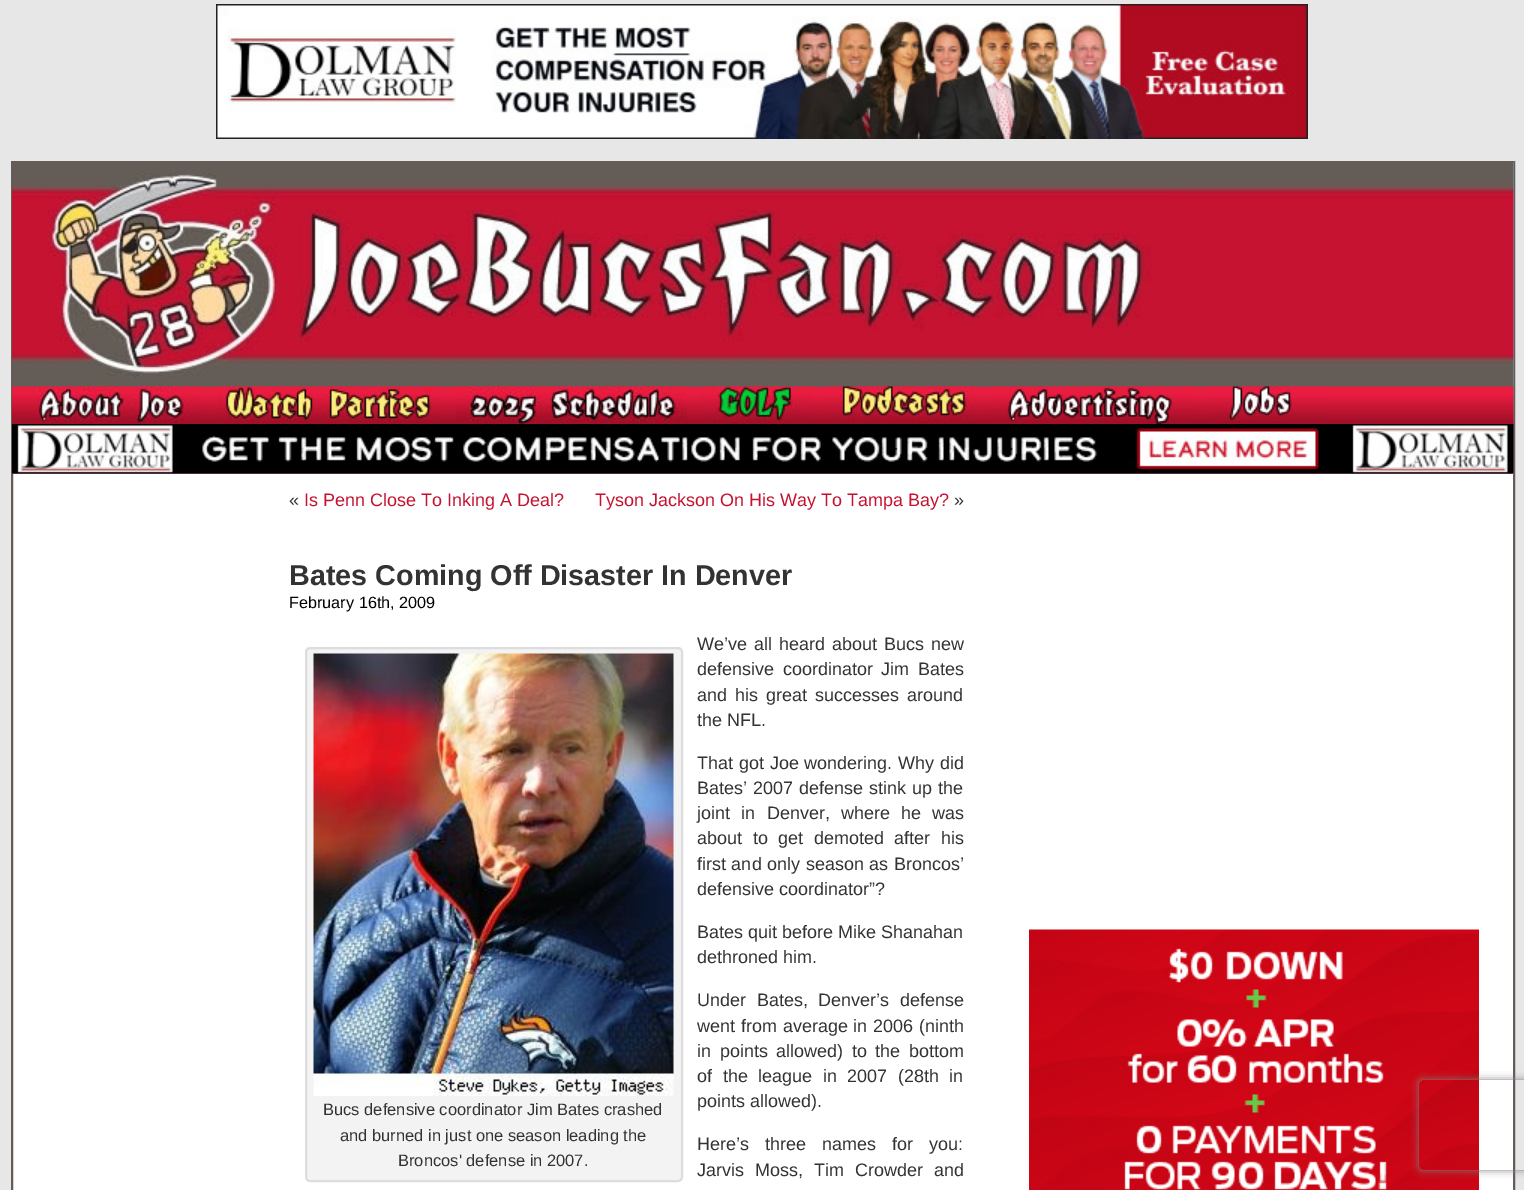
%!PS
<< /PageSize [1524 1190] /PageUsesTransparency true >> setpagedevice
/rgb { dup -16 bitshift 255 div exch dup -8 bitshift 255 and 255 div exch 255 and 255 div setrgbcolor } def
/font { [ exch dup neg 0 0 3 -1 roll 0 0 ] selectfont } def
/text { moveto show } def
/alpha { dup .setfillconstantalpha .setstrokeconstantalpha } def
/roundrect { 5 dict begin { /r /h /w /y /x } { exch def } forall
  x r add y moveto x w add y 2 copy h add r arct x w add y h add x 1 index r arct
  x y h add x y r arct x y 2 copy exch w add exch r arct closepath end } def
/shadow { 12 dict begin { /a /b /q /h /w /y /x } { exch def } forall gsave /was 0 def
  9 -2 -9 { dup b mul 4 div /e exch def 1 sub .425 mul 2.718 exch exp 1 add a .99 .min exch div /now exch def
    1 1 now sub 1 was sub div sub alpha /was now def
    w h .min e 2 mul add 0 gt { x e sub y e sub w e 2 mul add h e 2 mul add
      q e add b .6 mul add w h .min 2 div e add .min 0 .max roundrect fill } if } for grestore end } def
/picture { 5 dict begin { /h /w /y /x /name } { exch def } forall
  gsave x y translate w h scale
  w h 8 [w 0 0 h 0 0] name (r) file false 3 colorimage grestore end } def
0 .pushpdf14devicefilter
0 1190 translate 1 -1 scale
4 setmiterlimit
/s1 { /LiberationSans-Regular 18 font 16#333333 rgb } def
/s2 { /LiberationSans-Regular 18 font 16#C51230 rgb } def
/s3 { /LiberationSans-Bold 28.75 font 16#333333 rgb } def
/s4 { /LiberationSans-Regular 16.25 font 16#000000 rgb } def
/s5 { /LiberationSans-Regular 16.5 font 16#333333 rgb } def
16#E7E7E7 rgb
0 0 1524 1190 rectfill
(pic1.raw) 216 4 1092 135 picture
16#FFFFFF rgb
13 474 1500 716 rectfill
16#655C57 rgb
2 setlinewidth
12 162 1502 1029 rectstroke
16#73A0C5 rgb
12 162 1502 312 rectfill
(pic2.raw) 12 162 1502 312 picture
(pic4.raw) 12 386 1502 38 picture
(pic3.raw) 12 173 1169 214 picture
(pic5.raw) 12 386 189 37 picture
(pic6.raw) 216 386 225 37 picture
(pic7.raw) 456 386 231 38 picture
(pic8.raw) 702 386 111 37 picture
(pic9.raw) 828 386 149 37 picture
(pic10.raw) 991 386 202 38 picture
(pic11.raw) 1207 386 119 37 picture
(pic12.raw) 12 424 1502 50 picture
s1
(«) 289 506 text
s2
(Is Penn Close To Inking A Deal?) 304 506 text
(Tyson Jackson On His Way To Tampa Bay?) 595 506 text
s1
(») 954 506 text
s3
(Bates Coming Off Disaster In Denver) 289 585 text
s4
(February 16th, 2009) 289 608 text
/LiberationSans-Regular 18 font
16#333333 rgb
697 650 moveto 2 0 32 (We’ve all heard about Bucs new) widthshow
697 675 moveto 3.5 0 32 (defensive coordinator Jim Bates) widthshow
697 701 moveto 3 0 32 (and his great successes around) widthshow
(the NFL.) 697 726 text
697 769 moveto 0.75 0 32 (That got Joe wondering. Why did) widthshow
697 794 moveto 1 0 32 (Bates’ 2007 defense stink up the) widthshow
697 819 moveto 6.25 0 32 (joint in Denver, where he was) widthshow
697 844 moveto 5.5 0 32 (about to get demoted after his) widthshow
697 870 moveto 0.5 0 32 (first and only season as Broncos’) widthshow
(defensive coordinator”?) 697 895 text
(Bates quit before Mike Shanahan) 697 938 text
(dethroned him.) 697 963 text
697 1006 moveto 5.5 0 32 (Under Bates, Denver’s defense) widthshow
697 1032 moveto 0.75 0 32 (went from average in 2006 \(ninth) widthshow
697 1057 moveto 3.5 0 32 (in points allowed\) to the bottom) widthshow
697 1082 moveto 5.5 0 32 (of the league in 2007 \(28th in) widthshow
(points allowed\).) 697 1107 text
16#F3F3F3 rgb
306 648 376 533 4 roundrect gsave fill grestore
16#DDDDDD rgb
stroke
(pic13.raw) 313 653 361 443 picture
s5
(Bucs defensive coordinator Jim Bates crashed) 323 1115 text
(and burned in just one season leading the) 340 1141 text
(Broncos' defense in 2007.) 398 1166 text
/LiberationSans-Regular 18 font
697 1150 moveto 11 0 32 (Here’s three names for you:) widthshow
697 1176 moveto 6 0 32 (Jarvis Moss, Tim Crowder and) widthshow
(pic14.raw) 1029 929 450 261 picture
gsave
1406 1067 moveto 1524 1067 lineto 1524 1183 lineto 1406 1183 lineto closepath 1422 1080 moveto 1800 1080 lineto 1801.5 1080 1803 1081.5 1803 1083 curveto 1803 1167 lineto 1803 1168.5 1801.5 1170 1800 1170 curveto 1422 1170 lineto 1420.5 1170 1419 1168.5 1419 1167 curveto 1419 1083 lineto 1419 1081.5 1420.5 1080 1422 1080 curveto closepath eoclip newpath
16#808080 rgb
1419 1080 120 90 3 4 1 shadow
grestore
.poppdf14devicefilter showpage
